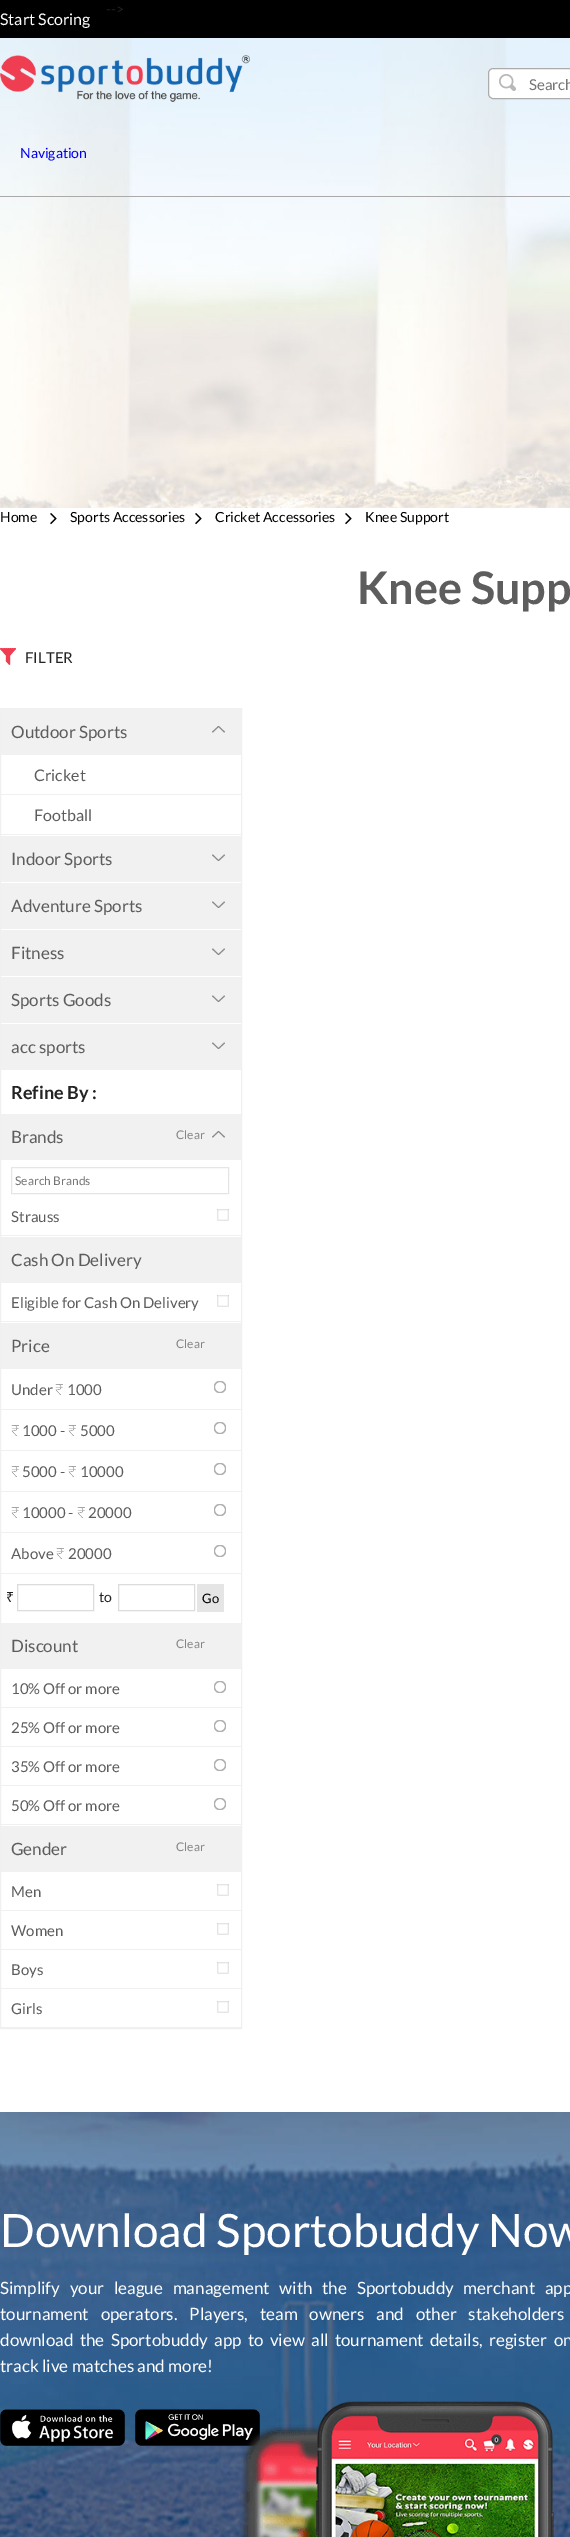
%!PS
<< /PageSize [570 2537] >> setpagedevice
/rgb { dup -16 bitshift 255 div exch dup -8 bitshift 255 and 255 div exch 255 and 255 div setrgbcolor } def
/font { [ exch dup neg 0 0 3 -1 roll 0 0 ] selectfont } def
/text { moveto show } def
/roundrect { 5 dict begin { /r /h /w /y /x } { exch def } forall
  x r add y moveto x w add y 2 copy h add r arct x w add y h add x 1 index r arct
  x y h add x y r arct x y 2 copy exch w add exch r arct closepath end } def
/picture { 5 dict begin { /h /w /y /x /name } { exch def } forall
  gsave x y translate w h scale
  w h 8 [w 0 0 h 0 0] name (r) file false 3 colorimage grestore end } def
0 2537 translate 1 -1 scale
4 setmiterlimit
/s1 { /Lato-Regular 14 font 16#232323 rgb } def
/s2 { /Lato-Regular 16 font 16#FFFFFF rgb } def
/s3 { /Lato-Regular 15 font 16#757575 rgb } def
/s4 { /Lato-Regular 14 font 16#0000EE rgb } def
/s5 { /Lato-Regular 14 font 16#000000 rgb } def
/s6 { /Lato-Bold 45 font 16#5D5D5D rgb } def
/s7 { /Lato-Regular 15 font 16#232323 rgb } def
/s8 { /Lato-Regular 17 font 16#5D5D5D rgb } def
/s9 { /Lato-Regular 16 font 16#5D5D5D rgb } def
/s10 { /Lato-Bold 18 font 16#232323 rgb } def
/s11 { /Lato-Regular 12 font 16#848686 rgb } def
/s12 { /Lato-Regular 12 font 16#757575 rgb } def
/s13 { /Lato-Regular 15 font 16#5D5D5D rgb } def
/s14 { /NotoSans-Thin 15 font 16#5D5D5D rgb } def
/s15 { /NotoSans-Regular 14 font 16#232323 rgb } def
/s16 { /Lato-Regular 13 font 16#000000 rgb } def
/s17 { /Lato-Regular 46 font 16#FFFFFF rgb } def
/s18 { /Lato-Regular 17 font 16#FFFFFF rgb } def
16#FFFFFF rgb
0 0 570 2537 rectfill
16#000000 rgb
0 0 570 38 rectfill
s1
(-->) 106 14 text
s2
(Start Scoring) 0 25 text
(pic3.raw) 0 38 570 470 picture
(pic1.raw) 0 55 250 47 picture
488 68 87 31 5 roundrect fill
(pic2.raw) 499 74 17 17 picture
16#ACACAC rgb
488.5 68.5 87 30 4.5 roundrect stroke
s3
(Search) 529 90 text
16#AAAAAA rgb
0 196 570 1 rectfill
s4
(Navigation) 20 158 text
s5
(Home) 0 522 text
(pic4.raw) 50 513 7 12 picture
(Sports Accessories) 70 522 text
(pic4.raw) 195 513 7 12 picture
(Cricket Accessories) 215 522 text
(pic4.raw) 345 513 7 12 picture
(Knee Support) 365 522 text
s6
(Knee Supp) 357 604 text
(pic5.raw) 0 648 16 17 picture
s7
(FILTER) 25 663 text
16#F0F0F0 rgb
0.5 708.5 241 1320 rectstroke
16#F1F1F1 rgb
1 709 240 46 rectfill
(pic6.raw) 212 726 13 7 picture
s8
(Outdoor Sports) 11 738 text
16#F0F0F0 rgb
1 794 240 1 rectfill
s9
(Cricket) 34 781 text
16#F0F0F0 rgb
1 834 240 1 rectfill
s9
(Football) 34 821 text
16#F1F1F1 rgb
1 836 240 46 rectfill
(pic7.raw) 212 854 13 7 picture
s8
(Indoor Sports) 11 865 text
16#F1F1F1 rgb
1 883 240 46 rectfill
(pic7.raw) 212 901 13 7 picture
s8
(Adventure Sports) 11 912 text
16#F1F1F1 rgb
1 930 240 46 rectfill
(pic7.raw) 212 948 13 7 picture
s8
(Fitness) 11 959 text
16#F1F1F1 rgb
1 977 240 46 rectfill
(pic7.raw) 212 995 13 7 picture
s8
(Sports Goods) 11 1006 text
16#F1F1F1 rgb
1 1024 240 46 rectfill
(pic7.raw) 212 1042 13 7 picture
s8
(acc sports) 11 1053 text
s10
(Refine By :) 11 1099 text
16#F1F1F1 rgb
1 1114 240 46 rectfill
(pic6.raw) 212 1131 13 7 picture
s8
(Brands) 11 1143 text
s11
(Clear) 176 1139 text
16#E5E5E5 rgb
11.5 1167.5 217 26 rectstroke
s12
(Search Brands) 15 1185 text
16#F0F0F0 rgb
1 1235 240 1 rectfill
s13
(Strauss) 11 1222 text
(pic8.raw) 217 1209 12 12 picture
16#F1F1F1 rgb
1 1237 240 46 rectfill
s8
(Cash On Delivery) 11 1266 text
16#F0F0F0 rgb
1 1321 240 1 rectfill
s13
(Eligible for Cash On Delivery) 11 1308 text
(pic8.raw) 217 1295 12 12 picture
16#F1F1F1 rgb
1 1323 240 46 rectfill
s8
(Price) 11 1352 text
s11
(Clear) 176 1348 text
16#F0F0F0 rgb
1 1409 240 1 rectfill
s13
(Under) 11 1395 text
s14
(₹) 55 1395 text
s13
(1000) 67 1395 text
(pic9.raw) 214 1381 12 12 picture
16#F0F0F0 rgb
1 1450 240 1 rectfill
s14
(₹) 11 1436 text
s13
(1000 -) 22 1436 text
s14
(₹) 68 1436 text
s13
(5000) 80 1436 text
(pic9.raw) 214 1422 12 12 picture
16#F0F0F0 rgb
1 1491 240 1 rectfill
s14
(₹) 11 1477 text
s13
(5000 -) 22 1477 text
s14
(₹) 68 1477 text
s13
(10000) 80 1477 text
(pic9.raw) 214 1463 12 12 picture
16#F0F0F0 rgb
1 1532 240 1 rectfill
s14
(₹) 11 1518 text
s13
(10000 -) 22 1518 text
s14
(₹) 77 1518 text
s13
(20000) 88 1518 text
(pic9.raw) 214 1504 12 12 picture
16#F0F0F0 rgb
1 1573 240 1 rectfill
s13
(Above) 11 1559 text
s14
(₹) 56 1559 text
s13
(20000) 68 1559 text
(pic9.raw) 214 1545 12 12 picture
s15
(₹) 6 1602 text
16#DCDCDC rgb
17.5 1584.5 76 26 rectstroke
s1
(to) 99 1602 text
16#DCDCDC rgb
118.5 1584.5 76 26 rectstroke
16#E5E5E5 rgb
197 1584 27 28 rectfill
s16
(Go) 202 1603 text
16#F1F1F1 rgb
1 1623 240 46 rectfill
s8
(Discount) 11 1652 text
s11
(Clear) 176 1648 text
16#F0F0F0 rgb
1 1707 240 1 rectfill
s13
(10% Off or more) 11 1694 text
(pic9.raw) 214 1681 12 12 picture
16#F0F0F0 rgb
1 1746 240 1 rectfill
s13
(25% Off or more) 11 1733 text
(pic9.raw) 214 1720 12 12 picture
16#F0F0F0 rgb
1 1785 240 1 rectfill
s13
(35% Off or more) 11 1772 text
(pic9.raw) 214 1759 12 12 picture
16#F0F0F0 rgb
1 1824 240 1 rectfill
s13
(50% Off or more) 11 1811 text
(pic9.raw) 214 1798 12 12 picture
16#F1F1F1 rgb
1 1826 240 46 rectfill
s8
(Gender) 11 1855 text
s11
(Clear) 176 1851 text
16#F0F0F0 rgb
1 1910 240 1 rectfill
s13
(Men) 11 1897 text
(pic8.raw) 217 1884 12 12 picture
16#F0F0F0 rgb
1 1949 240 1 rectfill
s13
(Women) 11 1936 text
(pic8.raw) 217 1923 12 12 picture
16#F0F0F0 rgb
1 1988 240 1 rectfill
s13
(Boys) 11 1975 text
(pic8.raw) 217 1962 12 12 picture
16#F0F0F0 rgb
1 2027 240 1 rectfill
s13
(Girls) 11 2014 text
(pic8.raw) 217 2001 12 12 picture
(pic10.raw) 0 2112 570 425 picture
s17
(Download Sportobuddy Now) 0 2247 text
/Lato-Regular 17 font
0 2294 moveto 6.5 0 32 (Simplify your league management with the Sportobuddy merchant app) widthshow
0 2320 moveto 8.5 0 32 (tournament operators. Players, team owners and other stakeholders) widthshow
0 2346 moveto 3 0 32 (download the Sportobuddy app to view all tournament details, register on) widthshow
(track live matches and more!) 0 2372 text
(pic11.raw) 0 2409 125 37 picture
(pic12.raw) 135 2409 125 37 picture
(pic13.raw) 240 2401 314 136 picture
showpage
